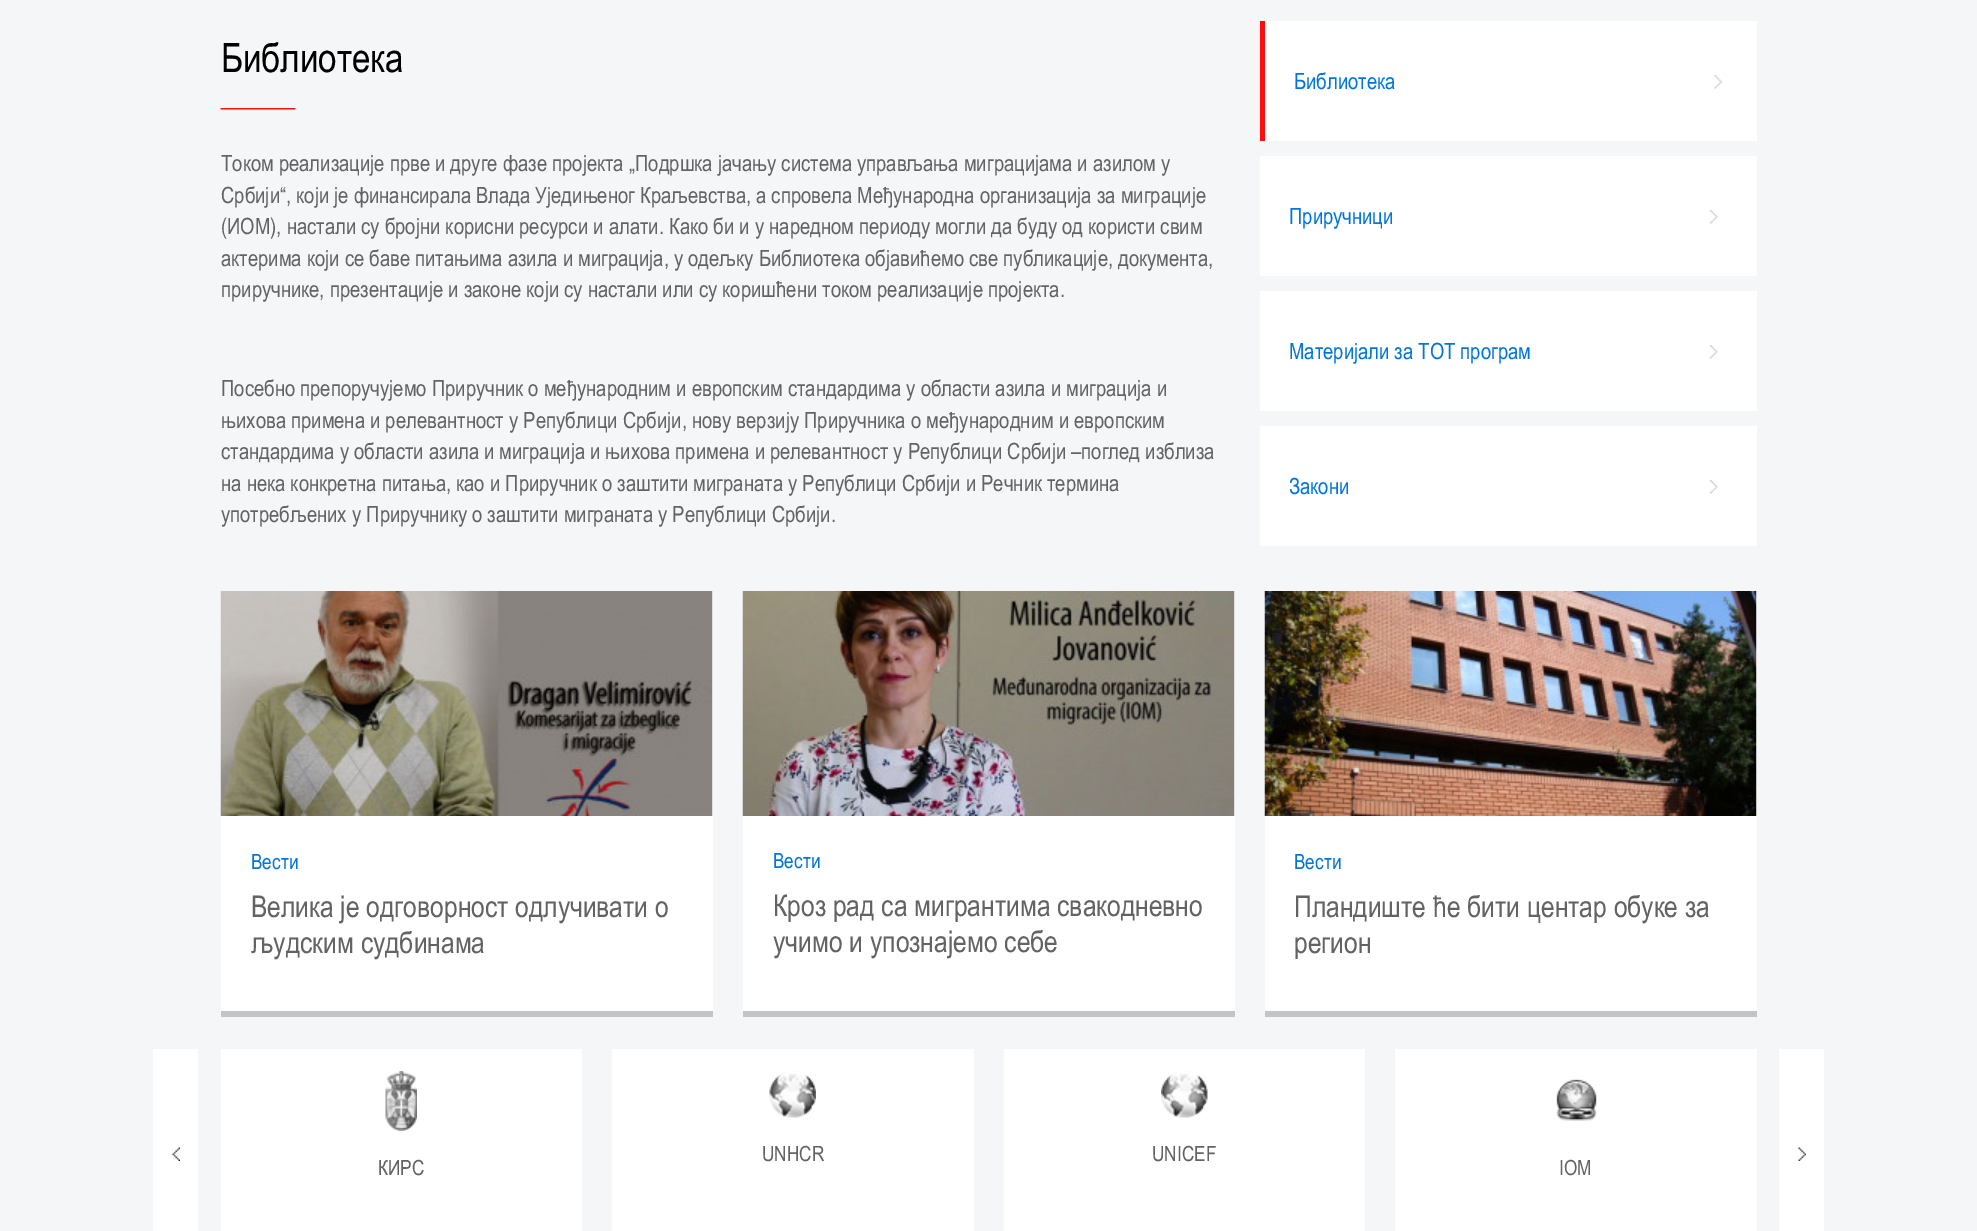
%!PS
<< /PageSize [1977 1231] >> setpagedevice
/rgb { dup -16 bitshift 255 div exch dup -8 bitshift 255 and 255 div exch 255 and 255 div setrgbcolor } def
/font { [ exch dup neg 0 0 3 -1 roll 0 0 ] selectfont } def
/text { moveto show } def
/picture { 5 dict begin { /h /w /y /x /name } { exch def } forall
  gsave x y translate w h scale
  w h 8 [w 0 0 h 0 0] name (r) file false 3 colorimage grestore end } def
0 1231 translate 1 -1 scale
4 setmiterlimit
/s1 { /Arial-Regular 40.5 font 16#000000 rgb } def
/s2 { /Arial-Regular 22.5 font 16#636363 rgb } def
/s3 { /Arial-Regular 22.5 font 16#0075DD rgb } def
/s4 { /Arial-Regular 21 font 16#0075DD rgb } def
/s5 { /Arial-Regular 30 font 16#636363 rgb } def
/s6 { /Arial-Regular 21 font 16#636363 rgb } def
16#F5F6F7 rgb
0 0 1977 1231 rectfill
(pic1.raw) 220 108 76 2 picture
s1
(Библиотека) 221 72 text
s2
(Током реализације прве и друге фазе пројекта „Подршка јачању система управљања миграцијама и азилом у) 221 171 text
(Србији“, који је финансирала Влада Уједињеног Краљевства, а спровела Међународна организација за миграције) 221 203 text
(\(ИОМ\), настали су бројни корисни ресурси и алати. Како би и у наредном периоду могли да буду од користи свим) 221 234 text
(актерима који се баве питањима азила и миграција, у одељку Библиотека објавићемо све публикације, документа,) 221 266 text
(приручнике, презентације и законе који су настали или су коришћени током реализације пројекта.) 221 297 text
(Посебно препоручујемо Приручник о међународним и европским стандардима у области азила и миграција и) 221 396 text
(њихова примена и релевантност у Републици Србији, нову верзију Приручника о међународним и европским) 221 428 text
(стандардима у области азила и миграција и њихова примена и релевантност у Републици Србији –поглед изблиза) 221 459 text
(на нека конкретна питања, као и Приручник о заштити миграната у Републици Србији и Речник термина) 221 491 text
(употребљених у Приручнику о заштити миграната у Републици Србији.) 221 522 text
16#FFFFFF rgb
1265 21 492 120 rectfill
(pic2.raw) 1714 75 8 14 picture
16#FF0D0C rgb
1260 21 5 120 rectfill
s3
(Библиотека) 1294 89 text
16#FFFFFF rgb
1260 156 497 120 rectfill
(pic3.raw) 1710 210 8 14 picture
s3
(Приручници) 1289 224 text
16#FFFFFF rgb
1260 291 497 120 rectfill
(pic3.raw) 1710 345 8 14 picture
s3
(Материјали за ТОТ програм) 1289 359 text
16#FFFFFF rgb
1260 426 497 120 rectfill
(pic3.raw) 1710 480 8 14 picture
s3
(Закони) 1289 494 text
16#FFFFFF rgb
221 591 492 420 rectfill
16#C3C4C5 rgb
221 1011 492 6 rectfill
(pic4.raw) 220 591 493 225 picture
s4
(Вести) 251 869 text
s5
(Велика је одговорност одлучивати о) 251 917 text
(људским судбинама) 251 953 text
16#FFFFFF rgb
743 591 492 420 rectfill
16#C3C4C5 rgb
743 1011 492 6 rectfill
(pic5.raw) 742 591 493 225 picture
s4
(Вести) 773 868 text
s5
(Кроз рад са мигрантима свакодневно) 773 916 text
(учимо и упознајемо себе) 773 952 text
16#FFFFFF rgb
1265 591 492 420 rectfill
16#C3C4C5 rgb
1265 1011 492 6 rectfill
(pic6.raw) 1264 591 493 225 picture
s4
(Вести) 1294 869 text
s5
(Пландиште ће бити центар обуке за) 1294 917 text
(регион) 1294 953 text
16#FFFFFF rgb
153 1049 45 182 rectfill
(pic7.raw) 172 1147 8 14 picture
1779 1049 45 182 rectfill
(pic8.raw) 1798 1147 8 14 picture
612 1049 362 182 rectfill
(pic9.raw) 769 1071 47 47 picture
s6
(UNHCR) 762 1161 text
16#FFFFFF rgb
1004 1049 361 182 rectfill
(pic10.raw) 1161 1071 47 47 picture
s6
(UNICEF) 1152 1161 text
16#FFFFFF rgb
221 1049 361 182 rectfill
(pic11.raw) 385 1071 32 60 picture
s6
(КИРС) 378 1175 text
16#FFFFFF rgb
1395 1049 362 182 rectfill
(pic12.raw) 1556 1079 41 42 picture
s6
(IOM) 1559 1175 text
showpage
